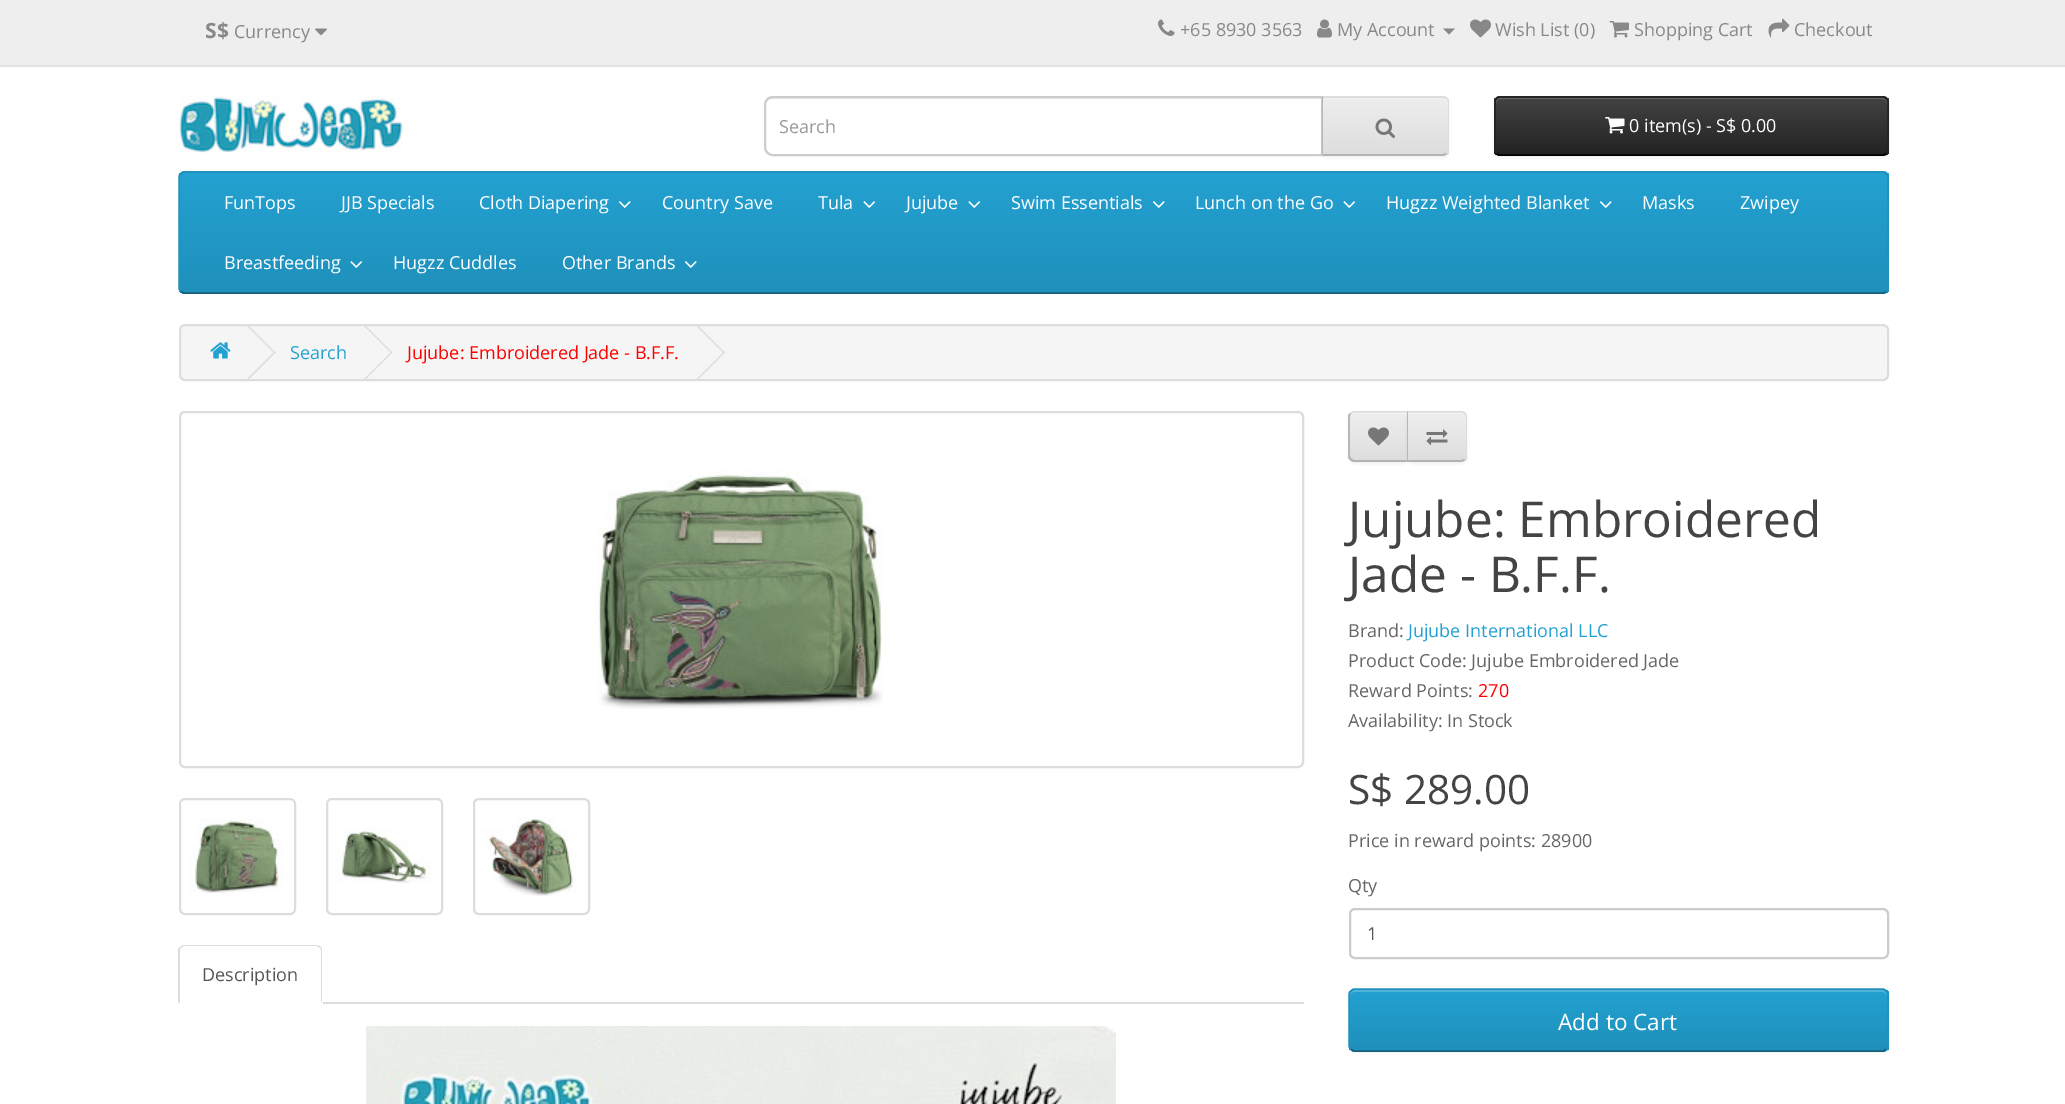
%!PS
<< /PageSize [2065 1104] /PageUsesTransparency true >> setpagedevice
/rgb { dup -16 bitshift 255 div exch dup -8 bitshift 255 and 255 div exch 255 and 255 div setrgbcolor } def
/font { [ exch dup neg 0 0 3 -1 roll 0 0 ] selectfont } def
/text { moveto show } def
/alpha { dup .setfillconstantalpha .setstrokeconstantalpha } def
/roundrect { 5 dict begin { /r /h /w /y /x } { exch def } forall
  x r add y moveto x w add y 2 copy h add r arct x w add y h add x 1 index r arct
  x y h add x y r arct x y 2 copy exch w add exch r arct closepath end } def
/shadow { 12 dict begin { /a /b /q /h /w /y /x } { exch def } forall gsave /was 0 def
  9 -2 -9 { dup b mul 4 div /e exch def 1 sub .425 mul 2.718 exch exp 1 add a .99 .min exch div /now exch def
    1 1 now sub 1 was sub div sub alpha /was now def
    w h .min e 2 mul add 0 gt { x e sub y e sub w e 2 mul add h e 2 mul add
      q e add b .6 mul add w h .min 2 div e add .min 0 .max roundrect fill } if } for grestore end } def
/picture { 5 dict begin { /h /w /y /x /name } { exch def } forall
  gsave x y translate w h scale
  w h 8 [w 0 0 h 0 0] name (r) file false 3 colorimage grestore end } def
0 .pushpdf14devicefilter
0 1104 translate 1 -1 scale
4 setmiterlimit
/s1 { /OpenSans-Bold 21 font 16#888888 rgb } def
/s2 { /OpenSans-Regular 18 font 16#888888 rgb } def
/s3 { /OpenSans-Regular 18 font 16#999999 rgb } def
/s4 { /OpenSans-Regular 18 font 16#FFFFFF rgb } def
/s5 { /OpenSans-Regular 18 font 16#23A1D1 rgb } def
/s6 { /OpenSans-Regular 18 font 16#FF0000 rgb } def
/s7 { /OpenSans-Regular 18 font 16#555555 rgb } def
/s8 { /OpenSans-Regular 49.5 font 16#444444 rgb } def
/s9 { /OpenSans-Regular 18 font 16#666666 rgb } def
/s10 { /OpenSans-Regular 40.5 font 16#444444 rgb } def
/s11 { /OpenSans-Regular 22.5 font 16#FFFFFF rgb } def
16#FFFFFF rgb
0 0 2065 1104 rectfill
16#EEEEEE rgb
0 0 2065 65 rectfill
16#E2E2E2 rgb
0 65 2065 2 rectfill
s1
(S$) 205 38 text
s2
(Currency) 234 38 text
(pic1.raw) 315 28 12 8 picture
(pic2.raw) 1158 19 17 17 picture
(+65 8930 3563) 1180 36 text
(pic3.raw) 1317 19 15 19 picture
(My Account) 1337 36 text
1443 28.5 moveto 1455 28.5 lineto 1449 34.5 lineto closepath fill
(pic4.raw) 1470 19 21 19 picture
(Wish List \(0\)) 1495 36 text
(pic5.raw) 1609 21 20 17 picture
(Shopping Cart) 1634 36 text
(pic6.raw) 1768 18 22 20 picture
(Checkout) 1794 36 text
(pic7.raw) 179 96 224 57 picture
16#ECECEC rgb
772 99 moveto 1322 99 lineto 1322 98 lineto 773 98 lineto 769 98 765 102 765 106 curveto 765 102 768 99 772 99 curveto closepath fill
16#CCCCCC rgb
2 setlinewidth
773 97 moveto 1322 97 lineto 1322 155 lineto 773 155 lineto 768.5 155 765 151.5 765 147 curveto 765 105 lineto 765 100.5 768.5 97 773 97 curveto closepath stroke
s3
(Search) 779 133 text
16#000000 rgb
1322 98 127 60 6 1.5 0.05 shadow
16#E7E7E7 rgb
1322 96 moveto 1443 96 lineto 1446.5 96 1449 98.5 1449 102 curveto 1449 150 lineto 1449 153.5 1446.5 156 1443 156 curveto 1322 156 lineto closepath fill
gsave
1322 96 moveto 1443 96 lineto 1446.5 96 1449 98.5 1449 102 curveto 1449 150 lineto 1449 153.5 1446.5 156 1443 156 curveto 1322 156 lineto closepath clip newpath
gsave 1323 98 moveto 1449 98 lineto 1449 155 lineto 1323 155 lineto closepath clip newpath
<< /ShadingType 2 /ColorSpace /DeviceRGB /Coords [1385 98 1385 155] /Extend [true true] /Function << /FunctionType 2 /Domain [0 1] /C0 [0.933 0.933 0.933] /C1 [0.867 0.867 0.867] /N 1 >> >> shfill grestore
grestore
16#F1F1F1 rgb
1323 99 moveto 1443 99 lineto 1445 99 1448 101 1448 104 curveto 1448 103 lineto 1448 100 1446 98 1443 98 curveto 1323 98 lineto closepath fill
16#DDDDDD rgb
1322 96 moveto 1324 98 lineto 1443 98 lineto 1446 99 lineto 1447 98 lineto 1446 97 1444 96 1443 96 curveto closepath fill
1449 150 moveto 1449 102 lineto 1449 100 1448 99 1447 98 curveto 1446 99 lineto 1447 100 1448 101 1448 102 curveto 1448 150 lineto 1448 151 1447 152 1446 153 curveto 1447 154 lineto 1448 153 1449 152 1449 150 curveto closepath fill
16#B3B3B3 rgb
1322 156 moveto 1444 156 lineto 1447 154 lineto 1446 153 lineto 1443 154 lineto 1324 154 lineto closepath fill
16#B7B7B7 rgb
1323 98 moveto 1324 98 lineto 1322 96 lineto 1322 156 lineto 1324 154 lineto 1323 154 lineto closepath fill
(pic8.raw) 1375 118 20 20 picture
16#000000 rgb
1494 98 395 60 6 1.5 0.05 shadow
16#363636 rgb
1494 96 395 60 6 roundrect fill
gsave
1494 96 395 60 6 roundrect clip newpath
gsave 1494 98 moveto 1889 98 lineto 1889 155 lineto 1494 155 lineto closepath clip newpath
<< /ShadingType 2 /ColorSpace /DeviceRGB /Coords [1691 97 1691 155] /Extend [true true] /Function << /FunctionType 2 /Domain [0 1] /C0 [0.267 0.267 0.267] /C1 [0.133 0.133 0.133] /N 1 >> >> shfill grestore
grestore
16#696969 rgb
1500 99 moveto 1882 99 lineto 1885 99 1887 101 1887 104 curveto 1887 103 lineto 1887 100 1885 98 1882 98 curveto 1501 98 lineto 1498 98 1496 100 1496 103 curveto 1496 104 lineto 1496 101 1498 99 1500 99 curveto closepath fill
16#000000 rgb
1.5 setlinewidth
1886 153.5 moveto 1885 154.5 1884 155 1882.5 155 curveto 1500 155 lineto 1498.5 155 1497.5 154.5 1496.5 153.5 curveto stroke
16#222222 rgb
1496.5 153.5 moveto 1495.5 152.5 1495 151.5 1495 150 curveto 1495 102 lineto 1495 100.5 1495.5 99.5 1496.5 98.5 curveto 1497.5 97.5 1498.5 97 1500 97 curveto 1882.5 97 lineto 1884 97 1885 97.5 1886 98.5 curveto 1887 99.5 1888 100.5 1888 102 curveto 1888 150 lineto 1888 151.5 1887 152.5 1886 153.5 curveto stroke
(pic9.raw) 1605 117 20 17 picture
s4
(0 item\(s\) - S$ 0.00) 1629 132 text
16#229AC8 rgb
179 171 1710 123 6 roundrect fill
gsave
179 171 1710 123 6 roundrect clip newpath
gsave 179 173 moveto 1889 173 lineto 1889 293 lineto 179 293 lineto closepath clip newpath
<< /ShadingType 2 /ColorSpace /DeviceRGB /Coords [1034 172 1034 293] /Extend [true true] /Function << /FunctionType 2 /Domain [0 1] /C0 [0.137 0.631 0.82] /C1 [0.122 0.565 0.733] /N 1 >> >> shfill grestore
grestore
16#145E7A rgb
1886 291.5 moveto 1885 292.5 1884 293 1882.5 293 curveto 184.5 293 lineto 183 293 182 292.5 181 291.5 curveto stroke
16#1F90BB rgb
181 291.5 moveto 180 290.5 179 289.5 179 288 curveto 179 177 lineto 179 175.5 180 174.5 181 173.5 curveto 182 172.5 183 172 184.5 172 curveto 1882.5 172 lineto 1884 172 1885 172.5 1886 173.5 curveto 1887 174.5 1888 175.5 1888 177 curveto 1888 288 lineto 1888 289.5 1887 290.5 1886 291.5 curveto stroke
s4
(FunTops) 224 209 text
(JJB Specials) 341 209 text
(Cloth Diapering) 479 209 text
(pic10.raw) 619 201 12 7 picture
(Country Save) 662 209 text
(Tula) 818 209 text
(pic11.raw) 863 201 12 7 picture
(Jujube) 906 209 text
(pic11.raw) 968 201 12 7 picture
(Swim Essentials) 1011 209 text
(pic10.raw) 1153 201 12 7 picture
(Lunch on the Go) 1195 209 text
(pic11.raw) 1343 201 12 7 picture
(Hugzz Weighted Blanket) 1386 209 text
(pic10.raw) 1600 201 12 7 picture
(Masks) 1642 209 text
(Zwipey) 1740 209 text
(Breastfeeding) 224 269 text
(pic12.raw) 350 261 12 7 picture
(Hugzz Cuddles) 393 269 text
(Other Brands) 562 269 text
(pic13.raw) 685 261 12 7 picture
16#F5F5F5 rgb
180 325 1708 55 5 roundrect gsave fill grestore
16#DDDDDD rgb
2 setlinewidth
stroke
(pic14.raw) 210 342 21 17 picture
247 326 moveto 248 325 lineto 275.5 352.5 lineto 274.5 353.5 lineto closepath fill
247 379 moveto 274.5 351.5 lineto 275.5 352.5 lineto 248 380 lineto closepath fill
s5
(Search) 290 359 text
16#DDDDDD rgb
364 326 moveto 365 325 lineto 392.5 352.5 lineto 391.5 353.5 lineto closepath fill
364 379 moveto 391.5 351.5 lineto 392.5 352.5 lineto 365 380 lineto closepath fill
s6
(Jujube: Embroidered Jade - B.F.F.) 407 359 text
16#DDDDDD rgb
696.5 326 moveto 697.5 325 lineto 725 352.5 lineto 724 353.5 lineto closepath fill
696.5 379 moveto 724 351.5 lineto 725 352.5 lineto 697.5 380 lineto closepath fill
180 412 1123 355 5 roundrect stroke
(pic15.raw) 596 467 287 242 picture
180 799 115 115 5 roundrect stroke
(pic16.raw) 188 818 96 75 picture
327 799 115 115 5 roundrect stroke
(pic17.raw) 336 828 95 56 picture
474 799 115 115 5 roundrect stroke
(pic18.raw) 482 818 95 78 picture
323 1002 981 2 rectfill
184 945 moveto 183 945 181 946 180 947 curveto 181 948 lineto 182 947 183 946 184 946 curveto 317 946 lineto 320 948 lineto 321 947 lineto 320 946 318 945 316 945 curveto closepath fill
321 947 moveto 322 948 322 950 322 951 curveto 322 1003 lineto 321 1002 lineto 321 951 lineto 321 950 321 949 320 948 curveto closepath fill
178 1004 moveto 178 949 lineto 180 947 lineto 181 948 lineto 180 949 180 950 180 951 curveto 180 1002 lineto closepath fill
s7
(Description) 202 981 text
(pic19.raw) 366 1026 750 78 picture
16#000000 rgb
1349 413 60 51 6 1.5 0.05 shadow
16#E7E7E7 rgb
1355 411 moveto 1409 411 lineto 1409 462 lineto 1355 462 lineto 1351.5 462 1349 459.5 1349 456 curveto 1349 417 lineto 1349 413.5 1351.5 411 1355 411 curveto closepath fill
gsave
1355 411 moveto 1409 411 lineto 1409 462 lineto 1355 462 lineto 1351.5 462 1349 459.5 1349 456 curveto 1349 417 lineto 1349 413.5 1351.5 411 1355 411 curveto closepath clip newpath
gsave 1349 413 moveto 1407 413 lineto 1407 461 lineto 1349 461 lineto closepath clip newpath
<< /ShadingType 2 /ColorSpace /DeviceRGB /Coords [1379 413 1379 461] /Extend [true true] /Function << /FunctionType 2 /Domain [0 1] /C0 [0.933 0.933 0.933] /C1 [0.867 0.867 0.867] /N 1 >> >> shfill grestore
grestore
16#F1F1F1 rgb
1354 414 moveto 1407 414 lineto 1407 413 lineto 1355 413 lineto 1352 413 1350 415 1350 418 curveto 1350 416 1352 414 1354 414 curveto closepath fill
16#DDDDDD rgb
1354 411 moveto 1353 411 1351 412 1350 413 curveto 1351 414 lineto 1354 412 lineto 1407 412 lineto 1408 411 lineto closepath fill
16#B3B3B3 rgb
1354 462 moveto 1408 462 lineto 1406 460 lineto 1354 460 lineto 1352 459 lineto 1350 460 lineto 1351 461 1353 462 1354 462 curveto closepath fill
16#B7B7B7 rgb
1348 415 moveto 1350 413 lineto 1351 414 lineto 1350 415 1350 416 1350 417 curveto 1350 456 lineto 1350 457 1351 458 1352 459 curveto 1350 460 lineto 1348 458 lineto closepath fill
(pic20.raw) 1368 427 21 19 picture
16#000000 rgb
1407 413 60 51 6 1.5 0.05 shadow
16#E7E7E7 rgb
1407 411 moveto 1461 411 lineto 1464.5 411 1467 413.5 1467 417 curveto 1467 456 lineto 1467 459.5 1464.5 462 1461 462 curveto 1407 462 lineto closepath fill
gsave
1407 411 moveto 1461 411 lineto 1464.5 411 1467 413.5 1467 417 curveto 1467 456 lineto 1467 459.5 1464.5 462 1461 462 curveto 1407 462 lineto closepath clip newpath
gsave 1408 413 moveto 1467 413 lineto 1467 461 lineto 1408 461 lineto closepath clip newpath
<< /ShadingType 2 /ColorSpace /DeviceRGB /Coords [1437 413 1437 461] /Extend [true true] /Function << /FunctionType 2 /Domain [0 1] /C0 [0.933 0.933 0.933] /C1 [0.867 0.867 0.867] /N 1 >> >> shfill grestore
grestore
16#F1F1F1 rgb
1409 413 moveto 1409 414 lineto 1461 414 lineto 1463 414 1466 416 1466 418 curveto 1466 415 1464 413 1461 413 curveto closepath fill
16#DDDDDD rgb
1407 411 moveto 1408 412 lineto 1461 412 lineto 1464 414 lineto 1465 413 lineto 1464 412 1462 411 1461 411 curveto closepath fill
1467 456 moveto 1467 417 lineto 1467 416 1466 414 1465 413 curveto 1464 414 lineto 1465 415 1466 416 1466 417 curveto 1466 456 lineto 1466 457 1465 458 1464 459 curveto 1465 460 lineto 1466 459 1467 458 1467 456 curveto closepath fill
16#B3B3B3 rgb
1461 462 moveto 1462 462 1464 461 1465 460 curveto 1464 459 lineto 1461 460 lineto 1409 460 lineto 1407 462 lineto closepath fill
16#B7B7B7 rgb
1407 411 moveto 1407 462 lineto 1409 460 lineto 1408 460 lineto 1408 412 lineto closepath fill
(pic21.raw) 1426 429 22 17 picture
s8
(Jujube: Embroidered) 1348 537 text
(Jade - B.F.F.) 1348 592 text
s9
(Brand:) 1348 637 text
s5
(Jujube International LLC) 1408 637 text
s9
(Product Code: Jujube Embroidered Jade) 1348 667 text
(Reward Points:) 1348 697 text
s6
(270) 1478 697 text
s9
(Availability: In Stock) 1348 727 text
s10
(S$ 289.00) 1348 804 text
s9
(Price in reward points: 28900) 1348 847 text
(Qty) 1348 892 text
16#ECECEC rgb
1354 910 moveto 1882 910 lineto 1885 910 1887 913 1887 915 curveto 1887 912 1885 909 1882 909 curveto 1355 909 lineto 1352 909 1350 912 1350 915 curveto 1350 913 1352 910 1354 910 curveto closepath fill
16#CCCCCC rgb
1350 909 538 49 5 roundrect stroke
s7
(1) 1367 940 text
16#000000 rgb
1349 990 540 63 6 1.5 0.05 shadow
16#229AC8 rgb
1349 989 540 63 6 roundrect fill
gsave
1349 989 540 63 6 roundrect clip newpath
gsave 1349 990 moveto 1889 990 lineto 1889 1050 lineto 1349 1050 lineto closepath clip newpath
<< /ShadingType 2 /ColorSpace /DeviceRGB /Coords [1619 990 1619 1050] /Extend [true true] /Function << /FunctionType 2 /Domain [0 1] /C0 [0.137 0.631 0.82] /C1 [0.122 0.565 0.733] /N 1 >> >> shfill grestore
grestore
16#4FB4DA rgb
1354 992 moveto 1882 992 lineto 1885 992 1887 994 1887 996 curveto 1887 993 1885 990 1882 990 curveto 1355 990 lineto 1352 990 1350 993 1350 996 curveto 1350 994 1352 992 1354 992 curveto closepath fill
16#145E7A rgb
1.5 setlinewidth
1886 1049 moveto 1885 1050 1884 1051 1882.5 1051 curveto 1354.5 1051 lineto 1353 1051 1352 1050 1351 1049 curveto stroke
16#1F90BB rgb
1351 1049 moveto 1350 1048 1349 1047 1349 1045.5 curveto 1349 994.5 lineto 1349 993 1350 992 1351 991 curveto 1352 990 1353 989 1354.5 989 curveto 1882.5 989 lineto 1884 989 1885 990 1886 991 curveto 1887 992 1888 993 1888 994.5 curveto 1888 1045.5 lineto 1888 1047 1887 1048 1886 1049 curveto stroke
s11
(Add to Cart) 1558 1030 text
.poppdf14devicefilter showpage
